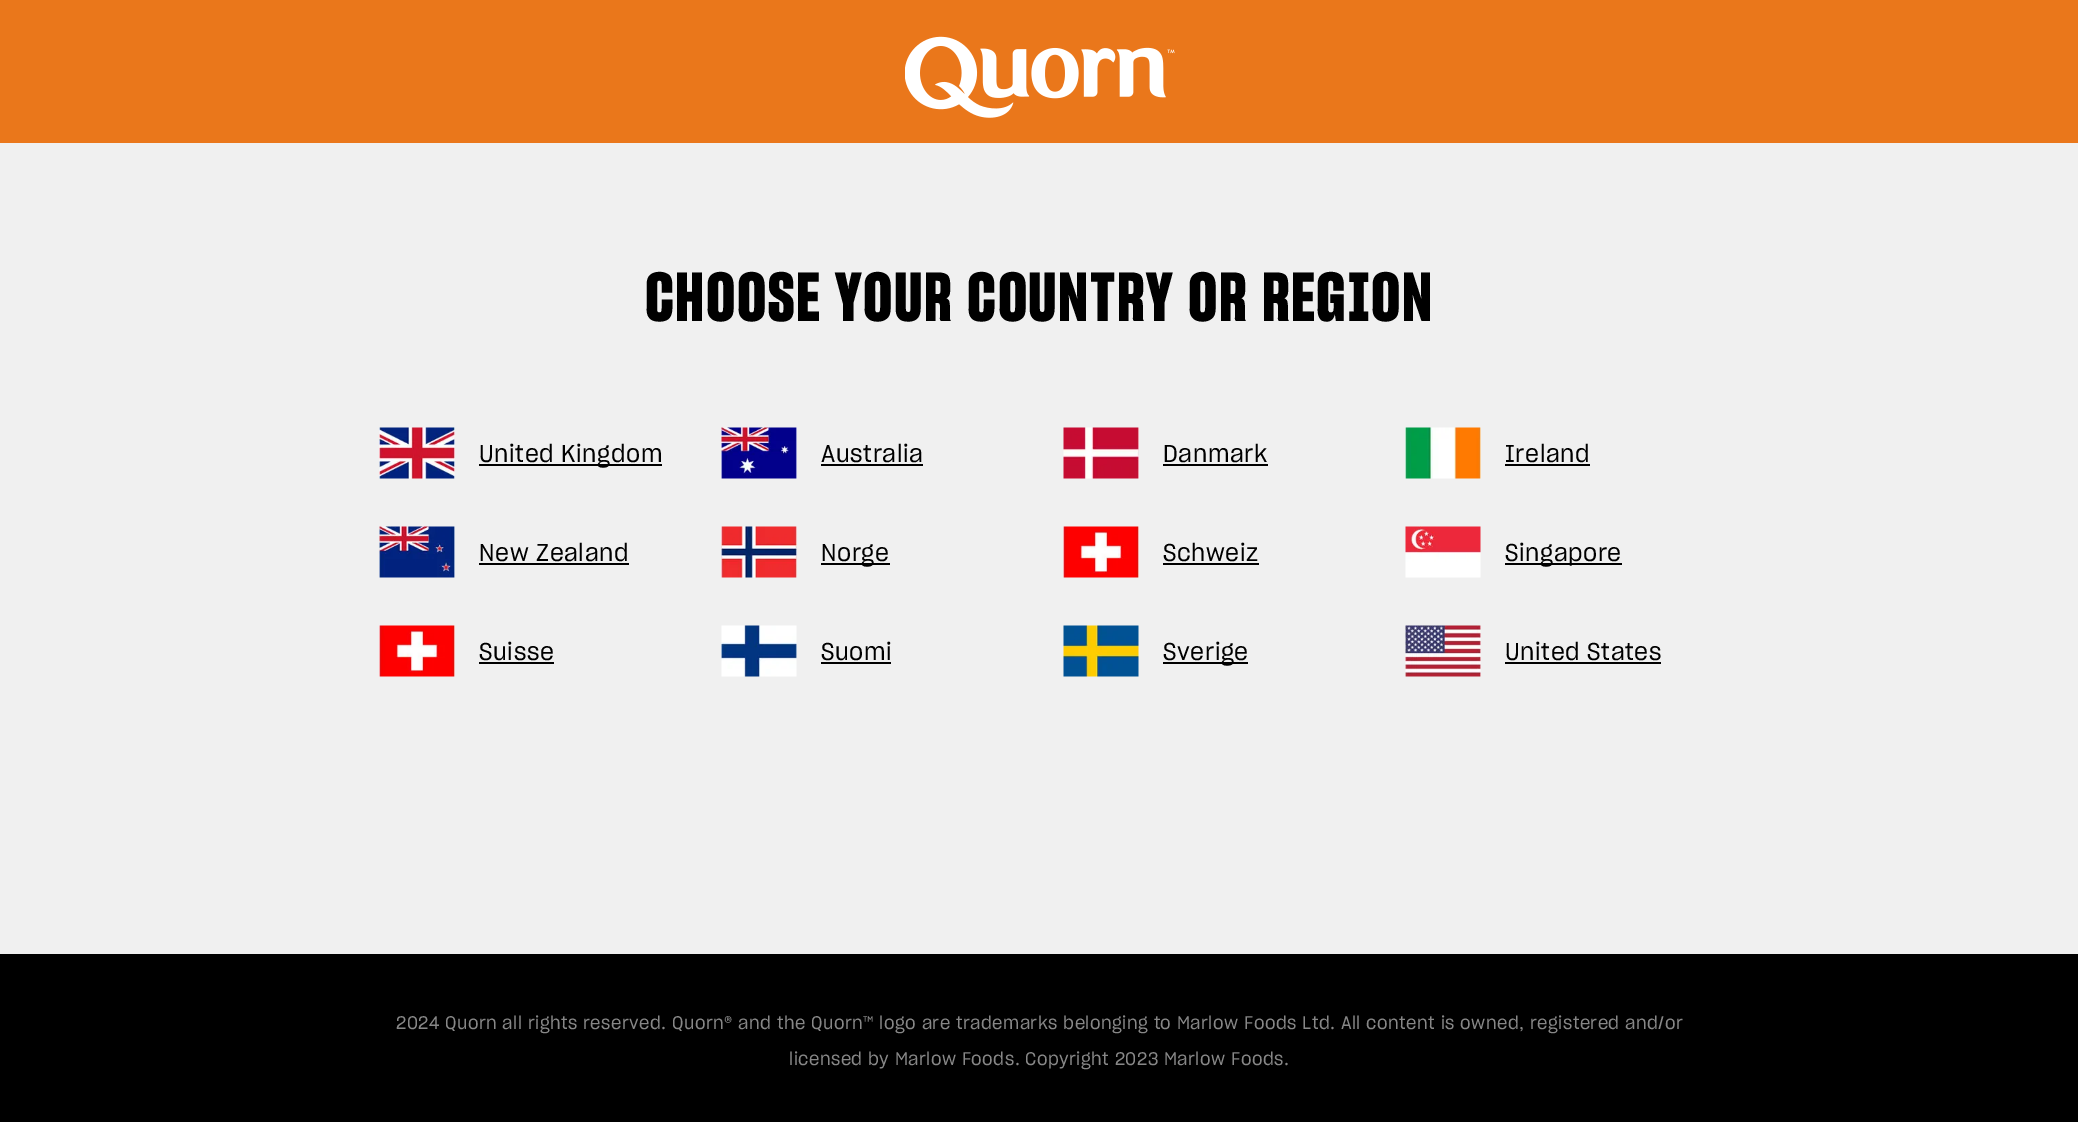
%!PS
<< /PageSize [2078 1122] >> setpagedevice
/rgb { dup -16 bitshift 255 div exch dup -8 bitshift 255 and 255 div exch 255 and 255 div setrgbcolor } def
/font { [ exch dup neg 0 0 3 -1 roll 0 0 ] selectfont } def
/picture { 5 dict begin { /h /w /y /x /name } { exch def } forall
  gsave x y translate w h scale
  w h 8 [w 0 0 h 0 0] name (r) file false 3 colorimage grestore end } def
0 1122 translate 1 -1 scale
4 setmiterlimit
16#F0F0F0 rgb
0 0 2078 1122 rectfill
16#EA771B rgb
0 0 2078 143 rectfill
(pic1.raw) 905 36 270 82 picture
/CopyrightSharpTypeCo-Bold 67.5 font
16#000000 rgb
645 321 moveto 1.6 0 (CHOOSE YOUR COUNTRY OR REGION) ashow
(pic2.raw) 379 427 76 52 picture
479 464 183 2 rectfill
/CopyrightSharpTypeCo-Regular 24 font
479 462 moveto 0.6 0 (United Kingdom) ashow
(pic3.raw) 721 427 76 52 picture
821 462 moveto 0.6 0 (Australia) ashow
821 464 102 2 rectfill
(pic4.raw) 1063 427 76 52 picture
1163 462 moveto 0.6 0 (Danmark) ashow
1163 464 105 2 rectfill
(pic5.raw) 1405 427 76 52 picture
1505 462 moveto 0.6 0 (Ireland) ashow
1505 464 85 2 rectfill
(pic6.raw) 379 526 76 52 picture
479 561 moveto 0.6 0 (New Zealand) ashow
479 563 150 2 rectfill
(pic7.raw) 721 526 76 52 picture
821 563 69 2 rectfill
821 561 moveto 0.6 0 (Norge) ashow
(pic8.raw) 1063 526 76 52 picture
1163 561 moveto 0.6 0 (Schweiz) ashow
1163 563 96 2 rectfill
(pic9.raw) 1405 526 76 52 picture
1505 563 117 2 rectfill
1505 561 moveto 0.6 0 (Singapore) ashow
(pic10.raw) 379 625 76 52 picture
479 660 moveto 0.6 0 (Suisse) ashow
479 662 75 2 rectfill
(pic11.raw) 721 625 76 52 picture
821 660 moveto 0.6 0 (Suomi) ashow
821 662 70 2 rectfill
(pic12.raw) 1063 625 76 52 picture
1163 662 85 2 rectfill
1163 660 moveto 0.6 0 (Sverige) ashow
(pic13.raw) 1405 625 76 52 picture
1505 660 moveto 0.6 0 (United States) ashow
1505 662 156 2 rectfill
0 954 2078 168 rectfill
/CopyrightSharpTypeCo-Regular 18 font
16#878787 rgb
396 1029 moveto 0.43 0 (2024 Quorn all rights reserved. Quorn® and the Quorn™ logo are trademarks belonging to Marlow Foods Ltd. All content is owned, registered and/or) ashow
789 1065 moveto 0.43 0 (licensed by Marlow Foods. Copyright 2023 Marlow Foods.) ashow
showpage
